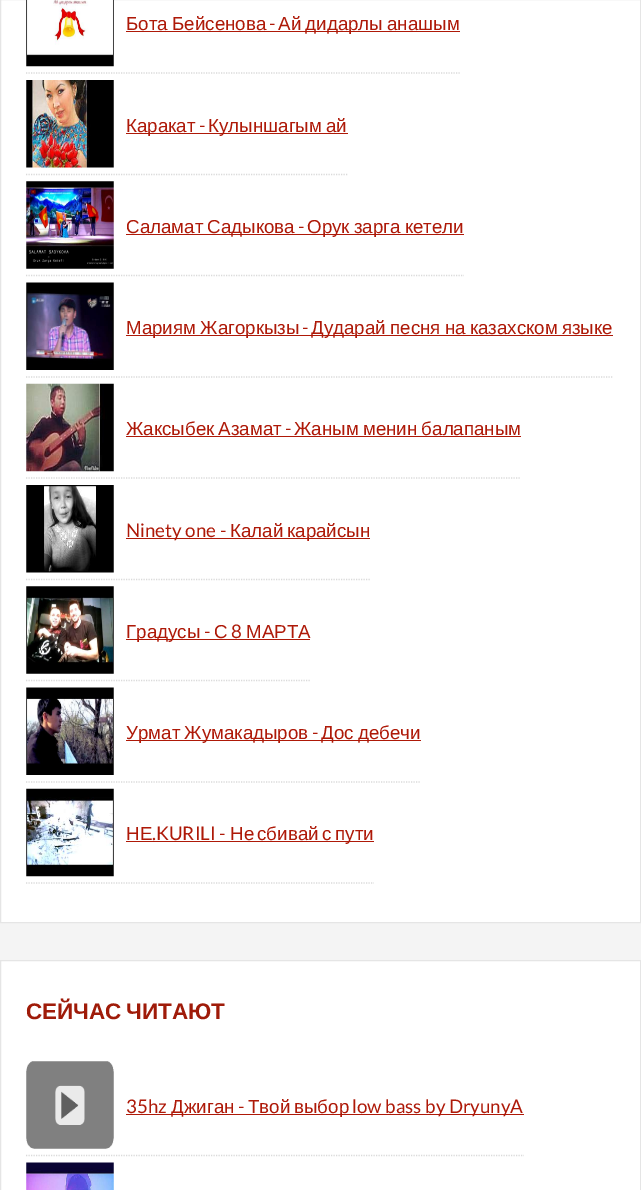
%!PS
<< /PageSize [641 1190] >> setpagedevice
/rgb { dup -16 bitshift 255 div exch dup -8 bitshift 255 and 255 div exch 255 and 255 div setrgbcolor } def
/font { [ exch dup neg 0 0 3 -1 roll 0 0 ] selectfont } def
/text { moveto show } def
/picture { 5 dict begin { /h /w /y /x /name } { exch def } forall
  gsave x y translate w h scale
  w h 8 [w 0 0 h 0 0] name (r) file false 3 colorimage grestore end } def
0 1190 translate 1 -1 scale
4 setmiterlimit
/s1 { /Lato-Regular 18.75 font 16#AE1908 rgb } def
/s2 { /LiberationSans-Regular 18.75 font 16#AE1908 rgb } def
16#F4F4F4 rgb
0 0 641 1190 rectfill
16#FFFFFF rgb
0.5 -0.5 moveto 640.5 -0.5 lineto 640.5 922.5 lineto 0.5 922.5 lineto closepath gsave fill grestore
16#E5E5E5 rgb
stroke
16#DADADA rgb
1.2 setlinewidth
[1.25 1.25] 0 setdash
26 73 moveto 460 73 lineto stroke
(pic1.raw) 26 0 88 67 picture
/LiberationSans-Regular 18.75 font
16#AE1908 rgb
126 30 moveto -1 0 32 (Бота Бейсенова) widthshow
s1
(-) 269 30 text
126 31 334 1 rectfill
/LiberationSans-Regular 18.75 font
278 30 moveto -1 0 32 (Ай дидарлы анашым) widthshow
16#DADADA rgb
26 174.5 moveto 347.5 174.5 lineto stroke
(pic2.raw) 26 80 88 88 picture
16#AE1908 rgb
126 133 222 1 rectfill
(Каракат) 126 132 text
s1
(-) 199 132 text
/LiberationSans-Regular 18.75 font
208 132 moveto -1 0 32 (Кулыншагым ай) widthshow
16#DADADA rgb
26 275.5 moveto 464 275.5 lineto stroke
(pic3.raw) 26 181 88 88 picture
16#AE1908 rgb
126 234 338 1 rectfill
126 233 moveto -1 0 32 (Саламат Садыкова) widthshow
s1
(-) 298 233 text
/LiberationSans-Regular 18.75 font
307 233 moveto -1 0 32 (Орук зарга кетели) widthshow
16#DADADA rgb
26 377 moveto 612.5 377 lineto stroke
(pic4.raw) 26 282 88 88 picture
16#AE1908 rgb
126 335 487 1 rectfill
126 334 moveto -1 0 32 (Мариям Жагоркызы) widthshow
s1
(-) 302 334 text
/LiberationSans-Regular 18.75 font
311 334 moveto -1 0 32 (Дударай песня на казахском языке) widthshow
16#DADADA rgb
26 478 moveto 521 478 lineto stroke
(pic5.raw) 26 383 88 89 picture
16#AE1908 rgb
126 435 moveto -1 0 32 (Жаксыбек Азамат) widthshow
s1
(-) 285 435 text
126 436 395 1 rectfill
/LiberationSans-Regular 18.75 font
294 435 moveto -1 0 32 (Жаным менин балапаным) widthshow
16#DADADA rgb
26 579.5 moveto 370 579.5 lineto stroke
(pic6.raw) 26 485 88 88 picture
16#AE1908 rgb
126 538 244 1 rectfill
s1
(Ninety one -) 126 537 text
s2
(Калай) 230 537 text
(карайсын) 287 537 text
16#DADADA rgb
26 680.5 moveto 310 680.5 lineto stroke
(pic7.raw) 26 586 88 88 picture
16#AE1908 rgb
126 639 184 1 rectfill
(Градусы) 126 638 text
s1
(-) 204 638 text
s2
(С) 214 638 text
s1
(8) 231 638 text
s2
(МАРТА) 246 638 text
16#DADADA rgb
26 782 moveto 421 782 lineto stroke
(pic8.raw) 26 687 88 88 picture
16#AE1908 rgb
126 740 295 1 rectfill
126 739 moveto -1 0 32 (Урмат Жумакадыров) widthshow
s1
(-) 312 739 text
/LiberationSans-Regular 18.75 font
321 739 moveto -1 0 32 (Дос дебечи) widthshow
16#DADADA rgb
26 883 moveto 374 883 lineto stroke
(pic9.raw) 26 788 88 89 picture
s2
(НЕ) 126 840 text
s1
(.KURILI -) 152 840 text
s2
(Не) 230 840 text
(сбивай) 257 840 text
(с) 322 840 text
126 841 248 1 rectfill
(пути) 335 840 text
16#FFFFFF rgb
0.5 960.5 moveto 640.5 960.5 lineto 640.5 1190.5 lineto 0.5 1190.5 lineto closepath gsave fill grestore
16#E5E5E5 rgb
1 setlinewidth
[] 0 setdash
stroke
/LiberationSans-Bold 22.5 font
16#9F1B09 rgb
26 1019 moveto -2 0 32 (СЕЙЧАС ЧИТАЮТ) widthshow
16#DADADA rgb
1.2 setlinewidth
[1.25 1.25] 0 setdash
26 1155.5 moveto 524 1155.5 lineto stroke
(pic10.raw) 26 1061 88 88 picture
s1
(35hz) 126 1113 text
126 1114 398 1 rectfill
s2
(Джиган) 171 1113 text
s1
(-) 238 1113 text
s2
(Твой) 248 1113 text
(выбор) 294 1113 text
s1
(low bass by DryunyA) 352 1113 text
(pic11.raw) 26 1162 88 28 picture
showpage
